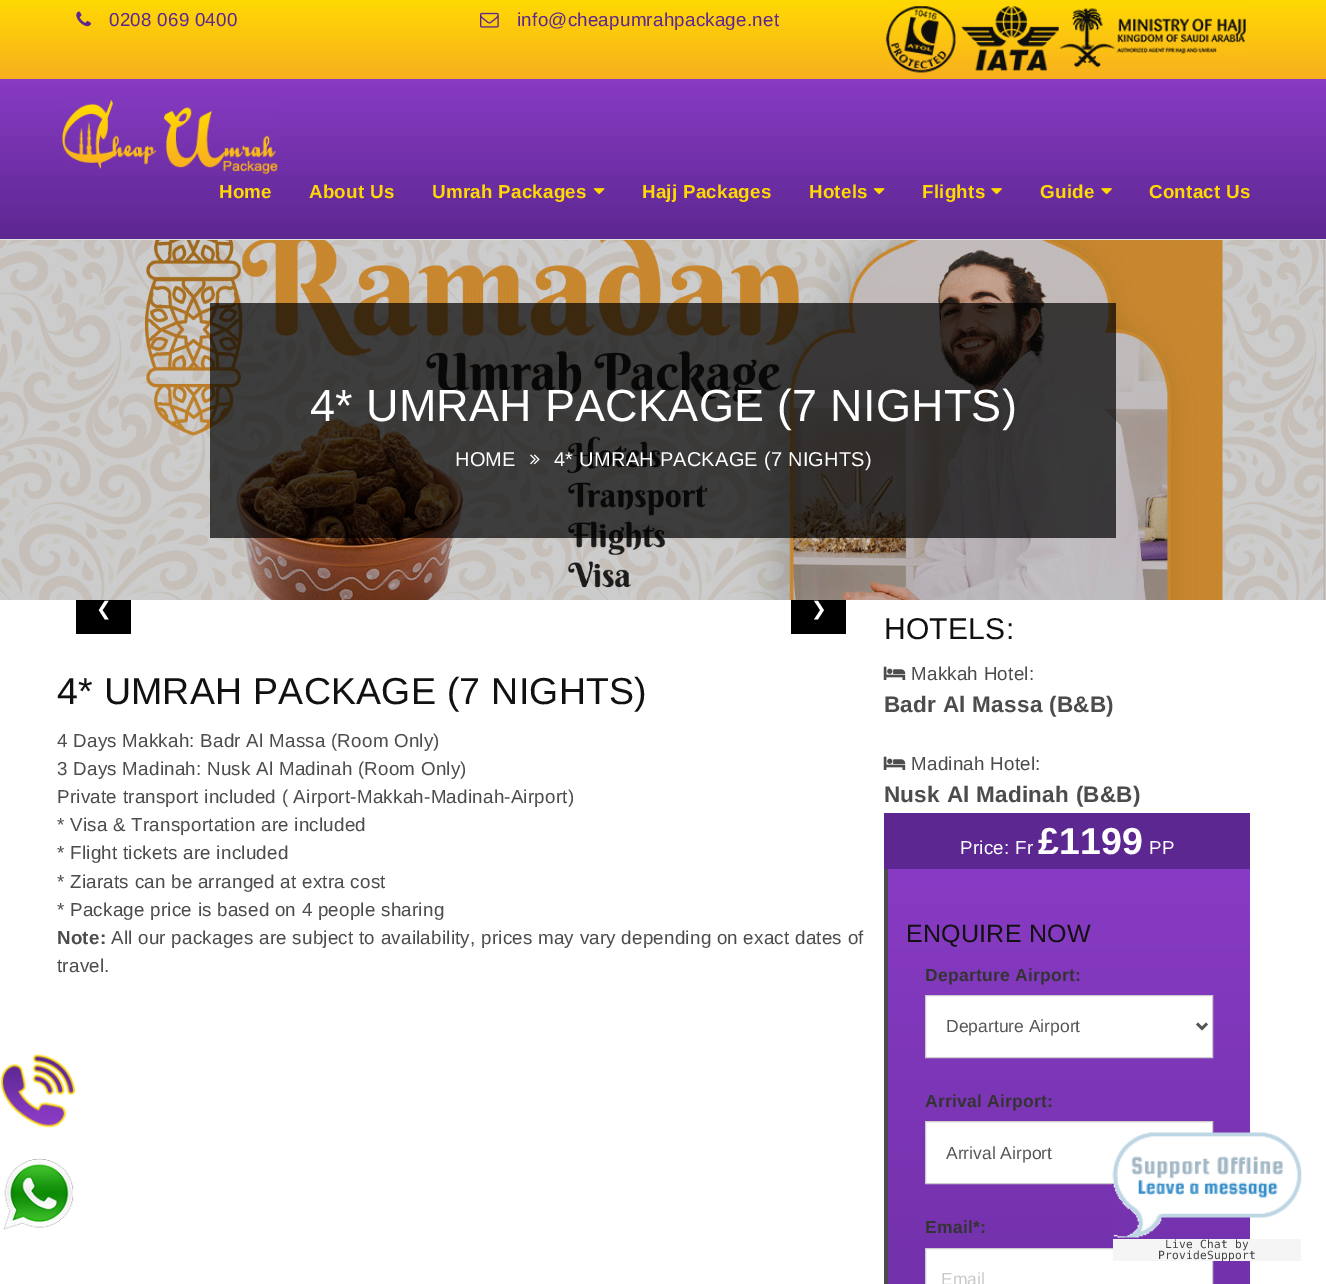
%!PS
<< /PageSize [1326 1284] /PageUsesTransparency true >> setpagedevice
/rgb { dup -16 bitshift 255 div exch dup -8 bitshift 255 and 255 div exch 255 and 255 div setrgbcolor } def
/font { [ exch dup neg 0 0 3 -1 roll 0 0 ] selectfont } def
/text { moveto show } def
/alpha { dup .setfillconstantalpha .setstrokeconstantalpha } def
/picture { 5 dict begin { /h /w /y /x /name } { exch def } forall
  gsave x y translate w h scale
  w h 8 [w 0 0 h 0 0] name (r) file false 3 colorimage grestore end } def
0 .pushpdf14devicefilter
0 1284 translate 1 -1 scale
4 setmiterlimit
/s1 { /DejaVuSans-Regular 18.75 font 16#FFFFFF rgb } def
/s2 { /LiberationSans-Regular 17.5 font 16#555555 rgb } def
/s3 { /LiberationSans-Regular 17.5 font 16#C8C8C8 rgb } def
16#FFFFFF rgb
0 0 1326 1284 rectfill
gsave 0 0 moveto 1326 0 lineto 1326 79 lineto 0 79 lineto closepath clip newpath
<< /ShadingType 2 /ColorSpace /DeviceRGB /Coords [663 0 663 79] /Extend [true true] /Function << /FunctionType 2 /Domain [0 1] /C0 [1 0.851 0.008] /C1 [0.973 0.686 0.118] /N 1 >> >> shfill grestore
(pic1.raw) 76 11 15 16 picture
/LiberationSans-Regular 18.75 font
16#5D2791 rgb
109 26 moveto 0.25 0 (0208 069 0400) ashow
(pic2.raw) 480 12 19 16 picture
517 26 moveto 0.25 0 (info@cheapumrahpackage.net) ashow
(pic3.raw) 885 6 361 67 picture
gsave 0 79 moveto 1326 79 lineto 1326 239 lineto 0 239 lineto closepath clip newpath
<< /ShadingType 2 /ColorSpace /DeviceRGB /Coords [663 79 663 239] /Extend [true true] /Function << /FunctionType 2 /Domain [0 1] /C0 [0.533 0.231 0.769] /C1 [0.365 0.153 0.569] /N 1 >> >> shfill grestore
16#E0E0E0 rgb
0 239 1326 1 rectfill
(pic4.raw) 62 99 216 75 picture
/LiberationSans-Bold 18.75 font
16#FFD900 rgb
219 198 moveto 0.25 0 (Home) ashow
309 198 moveto 0.25 0 (About Us) ashow
432 198 moveto 0.25 0 (Umrah Packages) ashow
(pic5.raw) 593 188 12 7 picture
642 198 moveto 0.25 0 (Hajj Packages) ashow
809 198 moveto 0.25 0 (Hotels) ashow
(pic5.raw) 873 188 12 7 picture
922 198 moveto 0.25 0 (Flights) ashow
(pic6.raw) 991 188 11 7 picture
1040 198 moveto 0.25 0 (Guide) ashow
(pic6.raw) 1101 188 11 7 picture
1149 198 moveto 0.25 0 (Contact Us) ashow
(pic7.raw) 0 240 1326 360 picture
0.7 alpha
16#000000 rgb
210 303 906 235 rectfill
/LiberationSans-Regular 45 font
1 alpha
16#FFFFFF rgb
310 421 moveto 0.25 0 (4* UMRAH PACKAGE \(7 NIGHTS\)) ashow
/LiberationSans-Regular 20 font
455 466 moveto 0.25 0 (HOME) ashow
(pic8.raw) 530 454 10 11 picture
554 466 moveto 0.25 0 (4* UMRAH PACKAGE \(7 NIGHTS\)) ashow
(pic9.raw) 1 1054 74 74 picture
16#000000 rgb
76 600 55 34 rectfill
s1
(❮) 96 615 text
16#000000 rgb
791 600 55 34 rectfill
s1
(❯) 811 615 text
/LiberationSans-Regular 37.5 font
16#111111 rgb
57 704 moveto 0.25 0 (4* UMRAH PACKAGE \(7 NIGHTS\)) ashow
/LiberationSans-Regular 18.75 font
16#4C4C4C rgb
57 747 moveto 0.25 0 (4 Days Makkah: Badr Al Massa \(Room Only\)) ashow
57 775 moveto 0.25 0 (3 Days Madinah: Nusk Al Madinah \(Room Only\)) ashow
57 803 moveto 0.25 0 (Private transport included \( Airport-Makkah-Madinah-Airport\)) ashow
57 831 moveto 0.25 0 (* Visa & Transportation are included) ashow
57 859 moveto 0.25 0 (* Flight tickets are included) ashow
57 888 moveto 0.25 0 (* Ziarats can be arranged at extra cost) ashow
57 916 moveto 0.25 0 (* Package price is based on 4 people sharing) ashow
/LiberationSans-Bold 18.75 font
57 944 moveto 0.25 0 (Note:) ashow
/LiberationSans-Regular 18.75 font
111 944 moveto 0.25 0 (All our packages are subject to availability, prices may vary depending on exact dates of) ashow
57 972 moveto 0.25 0 (travel.) ashow
/LiberationSans-Regular 30 font
16#111111 rgb
884 639 moveto 0.25 0 (HOTELS:) ashow
(pic10.raw) 883 666 23 14 picture
/LiberationSans-Regular 18.75 font
16#4C4C4C rgb
911 680 moveto 0.25 0 (Makkah Hotel:) ashow
/LiberationSans-Bold 22.5 font
884 712 moveto 0.25 0 (Badr Al Massa \(B&B\)) ashow
(pic10.raw) 883 756 23 14 picture
/LiberationSans-Regular 18.75 font
911 770 moveto 0.25 0 (Madinah Hotel:) ashow
/LiberationSans-Bold 22.5 font
884 802 moveto 0.25 0 (Nusk Al Madinah \(B&B\)) ashow
16#5D2791 rgb
884 813 366 56 rectfill
/LiberationSans-Regular 18.75 font
16#FFFFFF rgb
960 854 moveto 0.25 0 (Price: Fr) ashow
/LiberationSans-Bold 37.5 font
1038 854 moveto 0.25 0 (£1199) ashow
/LiberationSans-Regular 18.75 font
1149 854 moveto 0.25 0 (PP) ashow
gsave 888 869 moveto 1250 869 lineto 1250 1284 lineto 888 1284 lineto closepath clip newpath
<< /ShadingType 2 /ColorSpace /DeviceRGB /Coords [1069 869 1069 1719] /Extend [true true] /Function << /FunctionType 2 /Domain [0 1] /C0 [0.533 0.231 0.769] /C1 [0.365 0.153 0.569] /N 1 >> >> shfill grestore
16#4C4C4C rgb
884 869 4 415 rectfill
/LiberationSans-Regular 25 font
16#111111 rgb
906 942 moveto 0.25 0 (ENQUIRE NOW) ashow
/LiberationSans-Bold 17.5 font
16#333333 rgb
925 981 moveto 0.25 0 (Departure Airport:) ashow
16#FFFFFF rgb
925.5 995.5 moveto 1212.5 995.5 lineto 1212.5 1057.5 lineto 925.5 1057.5 lineto closepath gsave fill grestore
16#CCCCCC rgb
stroke
16#555555 rgb
2.5 setlinewidth
1197 1023.5 moveto 1202 1028.5 lineto 1207 1023.5 lineto stroke
s2
(Departure Airport) 946 1032 text
/LiberationSans-Bold 17.5 font
16#333333 rgb
925 1107 moveto 0.25 0 (Arrival Airport:) ashow
16#FFFFFF rgb
925.5 1121.5 moveto 1212.5 1121.5 lineto 1212.5 1183.5 lineto 925.5 1183.5 lineto closepath gsave fill grestore
16#CCCCCC rgb
1 setlinewidth
stroke
s2
(Arrival Airport) 946 1159 text
/LiberationSans-Bold 17.5 font
16#333333 rgb
925 1233 moveto 0.25 0 (Email*:) ashow
16#FFFFFF rgb
925.5 1248.5 moveto 1212.5 1248.5 lineto 1212.5 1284.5 lineto 925.5 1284.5 lineto closepath gsave fill grestore
16#CCCCCC rgb
stroke
s3
(Email) 941 1285 text
(pic11.raw) 3 1158 71 72 picture
(pic12.raw) 1112 1132 190 106 picture
16#F5F5F5 rgb
1113 1239 188 22 rectfill
/DejaVuSansMono-Regular 11.25 font
16#444444 rgb
1165 1248 moveto 0.25 0 (Live Chat by) ashow
1158 1259 moveto 0.25 0 (ProvideSupport) ashow
.poppdf14devicefilter showpage
